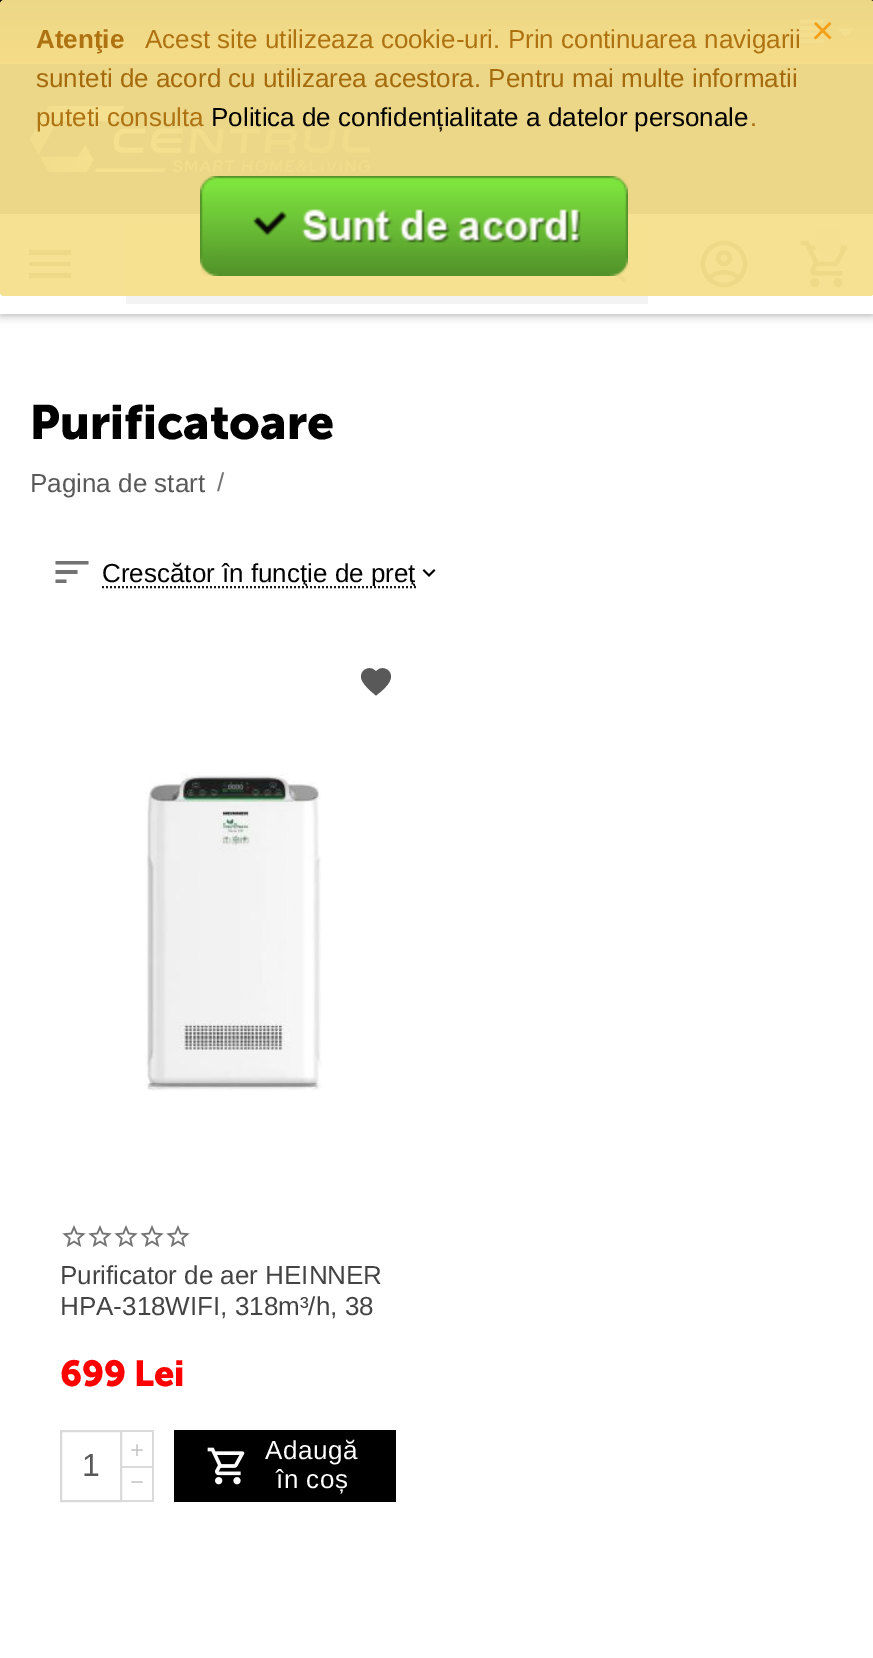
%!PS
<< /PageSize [873 1658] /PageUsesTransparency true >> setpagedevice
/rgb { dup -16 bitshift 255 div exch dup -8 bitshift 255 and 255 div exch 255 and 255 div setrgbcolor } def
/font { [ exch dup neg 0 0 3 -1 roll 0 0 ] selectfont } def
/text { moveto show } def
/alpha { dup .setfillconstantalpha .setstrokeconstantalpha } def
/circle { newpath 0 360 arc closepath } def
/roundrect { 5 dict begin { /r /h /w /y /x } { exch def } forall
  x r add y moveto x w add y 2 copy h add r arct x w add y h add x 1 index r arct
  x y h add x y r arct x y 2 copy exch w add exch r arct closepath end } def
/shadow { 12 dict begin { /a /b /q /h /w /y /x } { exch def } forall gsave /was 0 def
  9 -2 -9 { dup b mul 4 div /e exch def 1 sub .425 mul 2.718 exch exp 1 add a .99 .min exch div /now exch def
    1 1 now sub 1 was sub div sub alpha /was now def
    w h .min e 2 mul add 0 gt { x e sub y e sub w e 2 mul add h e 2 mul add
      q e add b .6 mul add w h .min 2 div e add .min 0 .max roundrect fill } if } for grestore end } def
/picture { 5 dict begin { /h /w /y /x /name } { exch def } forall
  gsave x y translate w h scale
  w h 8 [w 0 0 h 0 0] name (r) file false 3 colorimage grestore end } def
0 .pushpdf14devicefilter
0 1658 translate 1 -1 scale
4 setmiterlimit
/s1 { /LiberationSans-Bold 26 font 16#AF7210 rgb } def
/s2 { /LiberationSans-Regular 26 font 16#AF7210 rgb } def
/s3 { /LiberationSans-Regular 40 font 16#F39F17 rgb } def
/s4 { /LiberationSans-Regular 26 font 16#A56A0B rgb } def
/s5 { /LiberationSans-Regular 26 font 16#000000 rgb } def
/s6 { /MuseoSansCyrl-Bold 48 font 16#000000 rgb } def
/s7 { /LiberationSans-Regular 26 font 16#595959 rgb } def
/s8 { /LiberationSans-Regular 26 font 16#737373 rgb } def
/s9 { /LiberationSans-Regular 26 font 16#434343 rgb } def
/s10 { /MuseoSansCyrl-Bold 36 font 16#FF0000 rgb } def
/s11 { /LiberationSans-Regular 24 font 16#C0C0C0 rgb } def
/s12 { /LiberationSans-Regular 32 font 16#595959 rgb } def
16#FFFFFF rgb
0 0 873 1658 rectfill
gsave 0 0 moveto 873 0 lineto 873 62 lineto 0 62 lineto closepath clip newpath
<< /ShadingType 2 /ColorSpace /DeviceRGB /Coords [437 0 437 64] /Extend [true true] /Function << /FunctionType 2 /Domain [0 1] /C0 [0 0 0] /C1 [1 0.435 0] /N 1 >> >> shfill grestore
gsave 0 62 moveto 873 62 lineto 873 64 lineto 0 64 lineto closepath clip newpath
<< /ShadingType 2 /ColorSpace /DeviceRGB /Coords [437 0 437 64] /Extend [true true] /Function << /FunctionType 2 /Domain [0 1] /C0 [0.2 0.2 0.2] /C1 [1 0.549 0.2] /N 1 >> >> shfill grestore
(pic2.raw) 800 19 24 24 picture
0.75 alpha
845.5 36.5 moveto 838 28.5 lineto 853.5 28.5 lineto closepath fill
1 alpha
16#000000 rgb
0 64 873 150 rectfill
(pic3.raw) 30 106 340 66 picture
0 220 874 100 0 3 0.1 shadow
0 216 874 100 0 1 0.1 shadow
16#FFFFFF rgb
0 215 873 99 rectfill
16#363636 rgb
29 278 moveto 71 278 lineto 71 273 lineto 29 273 lineto closepath 29 266 moveto 71 266 lineto 71 262 lineto 29 262 lineto closepath 29 250 moveto 29 255 lineto 71 255 lineto 71 250 lineto closepath fill
16#F3F3F3 rgb
126 224 522 80 rectfill
(pic4.raw) 590 246 36 36 picture
(pic5.raw) 700 240 48 48 picture
(pic6.raw) 800 240 48 48 picture
16#E6E6E6 rgb
828 242 14 circle fill
0.96 alpha
16#F5E08C rgb
0 0 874 296 4 roundrect fill
1 alpha
s1
(Atenţie) 36 48 text
s2
(Acest site utilizeaza cookie-uri. Prin continuarea navigarii) 145 48 text
s3
(×) 811 44 text
s4
(sunteti de acord cu utilizarea acestora. Pentru mai multe informatii) 36 87 text
s2
(puteti consulta) 36 126 text
s5
(Politica de confidențialitate a datelor personale) 211 126 text
s4
(.) 750 126 text
(pic1.raw) 200 176 428 100 picture
s6
(Purificatoare) 30 439 text
s7
(Pagina de start) 30 492 text
s8
(/) 217 491 text
55.5 583 moveto 66.5 583 lineto 66.5 579.5 lineto 55.5 579.5 lineto closepath 55.5 561 moveto 55.5 564.5 lineto 88.5 564.5 lineto 88.5 561 lineto closepath 55.5 574 moveto 77.5 574 lineto 77.5 570 lineto 55.5 570 lineto closepath fill
16#1A1A1A rgb
2 setlinewidth
[2 2] 0 setdash
102 587 moveto 416 587 lineto stroke
gsave
102 560 314 26 rectclip
s5
(Crescător în funcţie de preţ) 102 582 text
grestore
(pic7.raw) 422 569 14 8 picture
16#595959 rgb
376 695.5 moveto 371 691.5 365 686.5 362 680.5 curveto 357.5 671.5 369.5 663.5 376 671.5 curveto 382.5 663.5 394.5 671.5 390 680.5 curveto 387.5 686.5 381 691.5 376 695.5 curveto closepath fill
(pic8.raw) 145 772 177 319 picture
(pic9.raw) 62 1225 24 22 picture
(pic9.raw) 88 1225 24 22 picture
(pic9.raw) 114 1225 24 22 picture
(pic9.raw) 140 1225 24 22 picture
(pic9.raw) 166 1225 24 22 picture
s9
(Purificator de aer HEINNER) 60 1284 text
(HPA-318WIFI, 318m³/h, 38) 60 1315 text
s10
(699) 60 1386 text
(Lei) 134 1386 text
16#DADADA rgb
122 1430 32 2 rectfill
152 1430 2 36 rectfill
s11
(+) 130 1458 text
16#DADADA rgb
[] 0 setdash
61 1431 60 70 rectstroke
s12
(1) 82 1476 text
16#DADADA rgb
122 1466 32 2 rectfill
152 1466 2 36 rectfill
122 1500 32 2 rectfill
s11
(−) 130 1490 text
16#000000 rgb
174 1430 222 72 rectfill
(pic10.raw) 207 1447 38 38 picture
/LiberationSans-Regular 26 font
16#FFFFFF rgb
265 1459 moveto 0.5 0 (Adaugă) ashow
276 1488 moveto 0.5 0 (în coș) ashow
.poppdf14devicefilter showpage
